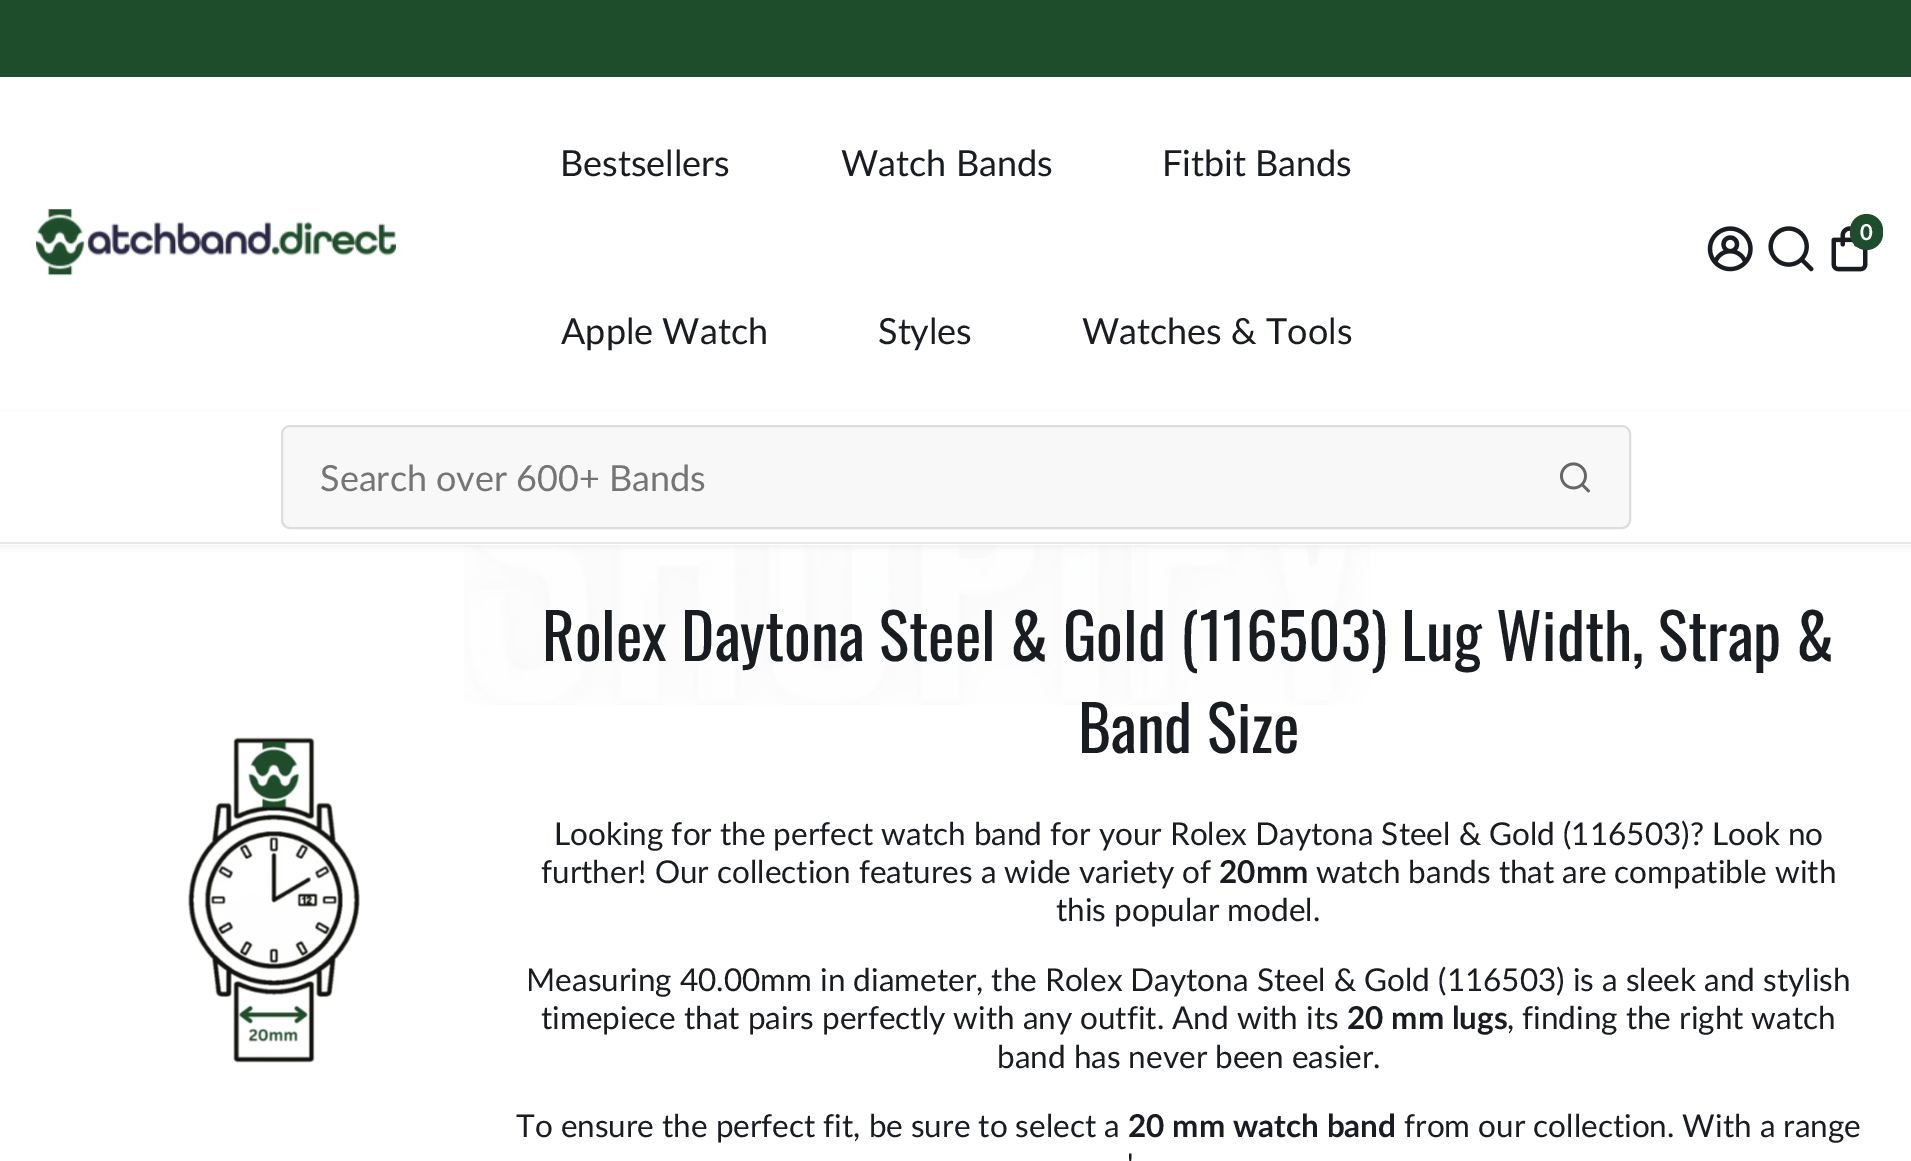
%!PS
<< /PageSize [1911 1161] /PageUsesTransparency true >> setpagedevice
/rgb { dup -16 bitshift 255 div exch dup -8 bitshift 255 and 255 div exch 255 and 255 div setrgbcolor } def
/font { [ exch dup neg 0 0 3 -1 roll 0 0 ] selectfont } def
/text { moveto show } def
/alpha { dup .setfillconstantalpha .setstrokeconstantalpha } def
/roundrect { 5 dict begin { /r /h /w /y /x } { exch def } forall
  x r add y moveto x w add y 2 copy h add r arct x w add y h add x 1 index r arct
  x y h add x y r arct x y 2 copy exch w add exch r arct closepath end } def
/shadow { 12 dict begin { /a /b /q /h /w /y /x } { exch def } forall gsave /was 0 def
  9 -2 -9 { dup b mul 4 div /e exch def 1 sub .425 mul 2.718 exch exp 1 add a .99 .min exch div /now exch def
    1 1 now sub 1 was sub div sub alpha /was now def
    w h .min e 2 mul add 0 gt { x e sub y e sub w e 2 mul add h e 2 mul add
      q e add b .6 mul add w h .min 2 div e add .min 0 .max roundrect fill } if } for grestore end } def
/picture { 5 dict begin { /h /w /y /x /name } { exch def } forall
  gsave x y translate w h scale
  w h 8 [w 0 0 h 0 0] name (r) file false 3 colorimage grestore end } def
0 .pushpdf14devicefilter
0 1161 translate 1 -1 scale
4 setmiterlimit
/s1 { /Lato-Regular 36 font 16#191D21 rgb } def
/s2 { /Lato-Bold 22 font 16#FFFFFF rgb } def
/s3 { /Lato-Regular 36 font 16#757575 rgb } def
/s4 { /Oswald-Regular 63 font 16#191D21 rgb } def
/s5 { /Lato-Regular 31.5 font 16#191D21 rgb } def
/s6 { /Lato-Bold 31.5 font 16#191D21 rgb } def
16#FFFFFF rgb
0 0 1911 1161 rectfill
16#1E4D2B rgb
0 0 1911 77 rectfill
(pic1.raw) 36 209 360 67 picture
s1
(Bestsellers) 560 176 text
(Watch Bands) 841 176 text
(Fitbit Bands) 1162 176 text
(Apple Watch) 561 344 text
(Styles) 878 344 text
(Watches & Tools) 1082 344 text
(pic2.raw) 1707 226 46 46 picture
(pic3.raw) 1768 226 46 46 picture
(pic4.raw) 1831 226 37 46 picture
16#1E4D2B rgb
1850 214 33 36 16.5 roundrect fill
s2
(0) 1860 240 text
(pic7.raw) 464 545 907 160 picture
16#000000 rgb
0 414 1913 133 0 3.5 0.05 shadow
16#FFFFFF rgb
0 412 1911 133 rectfill
16#E8E8E8 rgb
0 542 1911 2 rectfill
16#F8F8F8 rgb
282 426 1348 102 8 roundrect gsave fill grestore
16#DDDDDD rgb
2 setlinewidth
stroke
s3
(Search over 600+ Bands) 320 491 text
(pic5.raw) 1559 462 31 31 picture
(pic6.raw) 187 737 173 326 picture
s4
(Rolex Daytona Steel & Gold \(116503\) Lug Width, Strap &) 542 661 text
(Band Size) 1078 753 text
s5
(Looking for the perfect watch band for your Rolex Daytona Steel & Gold \(116503\)? Look no) 554 845 text
(further! Our collection features a wide variety of) 541 883 text
s6
(20mm) 1219 883 text
s5
(watch bands that are compatible with) 1316 883 text
(this popular model.) 1056 921 text
(Measuring 40.00mm in diameter, the Rolex Daytona Steel & Gold \(116503\) is a sleek and stylish) 526 991 text
(timepiece that pairs perfectly with any outfit. And with its) 541 1029 text
s6
(20 mm lugs) 1347 1029 text
s5
(, finding the right watch) 1507 1029 text
(band has never been easier.) 997 1068 text
(To ensure the perfect fit, be sure to select a) 516 1137 text
s6
(20 mm) 1128 1137 text
(watch band) 1233 1137 text
s5
(from our collection. With a range) 1404 1137 text
(') 1127 1176 text
.poppdf14devicefilter showpage
